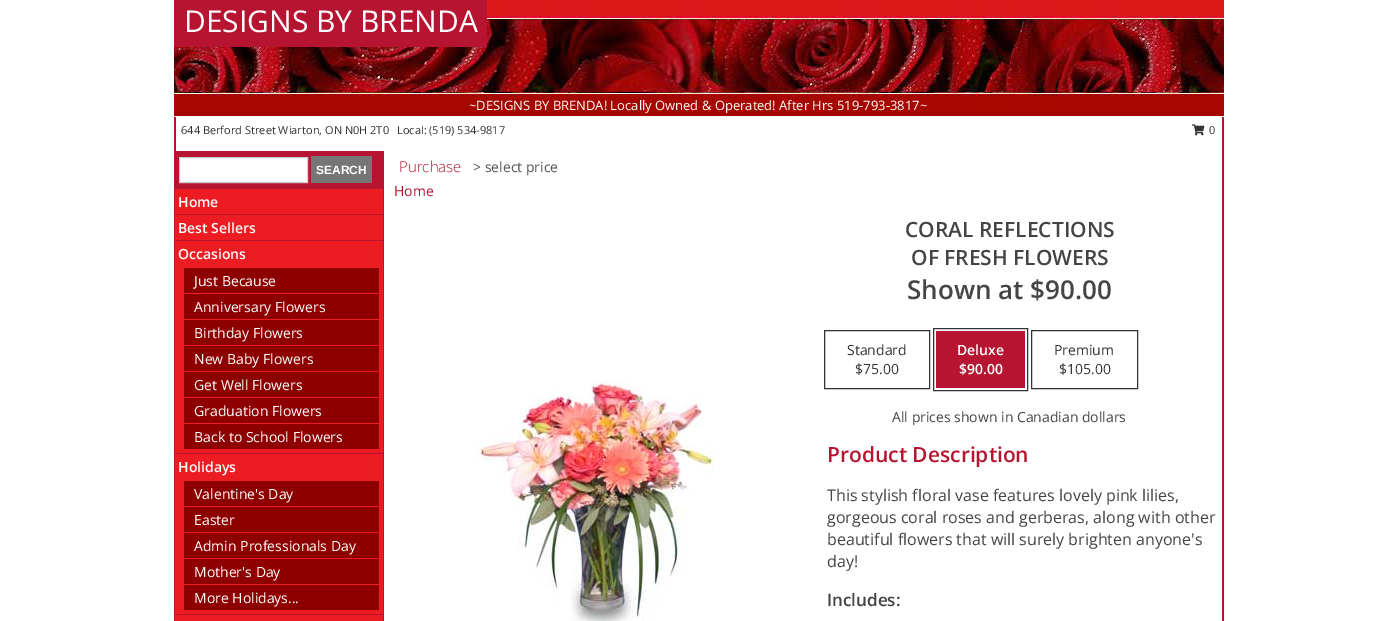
%!PS
<< /PageSize [1397 621] >> setpagedevice
/rgb { dup -16 bitshift 255 div exch dup -8 bitshift 255 and 255 div exch 255 and 255 div setrgbcolor } def
/font { [ exch dup neg 0 0 3 -1 roll 0 0 ] selectfont } def
/text { moveto show } def
/picture { 5 dict begin { /h /w /y /x /name } { exch def } forall
  gsave x y translate w h scale
  w h 8 [w 0 0 h 0 0] name (r) file false 3 colorimage grestore end } def
0 621 translate 1 -1 scale
4 setmiterlimit
/s1 { /OpenSans-Regular 30 font 16#FFFFFF rgb } def
/s2 { /OpenSans-Regular 13 font 16#FFFFFF rgb } def
/s3 { /OpenSans-Regular 11 font 16#333333 rgb } def
/s4 { /LiberationSans-Bold 12 font 16#FFFFFF rgb } def
/s5 { /OpenSans-SemiBold 14 font 16#FFFFFF rgb } def
/s6 { /OpenSans-Regular 14 font 16#FFFFFF rgb } def
/s7 { /OpenSans-Light 15 font 16#B71431 rgb } def
/s8 { /OpenSans-Regular 14 font 16#535353 rgb } def
/s9 { /OpenSans-Regular 14 font 16#B71431 rgb } def
/s10 { /OpenSans-SemiBold 21 font 16#444444 rgb } def
/s11 { /OpenSans-SemiBold 26 font 16#444444 rgb } def
/s12 { /OpenSans-Regular 14 font 16#333333 rgb } def
/s13 { /OpenSans-Regular 14 font 16#444444 rgb } def
/s14 { /OpenSans-SemiBold 21 font 16#B71431 rgb } def
/s15 { /OpenSans-Regular 16 font 16#444444 rgb } def
/s16 { /OpenSans-SemiBold 17 font 16#444444 rgb } def
16#FFFFFF rgb
0 0 1397 621 rectfill
(pic1.raw) 174 0 1050 116 picture
16#B71431 rgb
174 0 313 47 rectfill
s1
(DESIGNS BY BRENDA) 184 32 text
s2
(~DESIGNS BY BRENDA! Locally Owned & Operated! After Hrs 519-793-3817~) 469 110 text
16#B71431 rgb
1222 117 2 34 rectfill
174 117 2 34 rectfill
s3
(644 Berford Street Wiarton, ON N0H 2T0) 181 134 text
(Local: \(519\) 534-9817) 397 134 text
(pic2.raw) 1192 124 13 12 picture
1209 134 moveto 1 0 (0) ashow
16#B71431 rgb
174 151 1050 470 rectfill
16#FFFFFF rgb
179.5 157.5 moveto 307.5 157.5 lineto 307.5 182.5 lineto 179.5 182.5 lineto closepath gsave fill grestore
16#CCCCCC rgb
stroke
16#767676 rgb
311 156 61 27 rectfill
s4
(SEARCH) 316 174 text
16#ED1C22 rgb
175 189 208 25 rectfill
s5
(Home) 178 207 text
16#ED1C22 rgb
175 215 208 25 rectfill
s5
(Best Sellers) 178 233 text
16#ED1C22 rgb
175 241 208 212 rectfill
s5
(Occasions) 178 259 text
16#8E0000 rgb
184 268 195 25 rectfill
s6
(Just Because) 194 286 text
16#8E0000 rgb
184 294 195 25 rectfill
s6
(Anniversary Flowers) 194 312 text
16#8E0000 rgb
184 320 195 25 rectfill
s6
(Birthday Flowers) 194 338 text
16#8E0000 rgb
184 346 195 25 rectfill
s6
(New Baby Flowers) 194 364 text
16#8E0000 rgb
184 372 195 25 rectfill
s6
(Get Well Flowers) 194 390 text
16#8E0000 rgb
184 398 195 25 rectfill
s6
(Graduation Flowers) 194 416 text
16#8E0000 rgb
184 424 195 25 rectfill
s6
(Back to School Flowers) 194 442 text
16#ED1C22 rgb
175 454 208 160 rectfill
s5
(Holidays) 178 472 text
16#8E0000 rgb
184 481 195 25 rectfill
s6
(Valentine's Day) 194 499 text
16#8E0000 rgb
184 507 195 25 rectfill
s6
(Easter) 194 525 text
16#8E0000 rgb
184 533 195 25 rectfill
s6
(Admin Professionals Day) 194 551 text
16#8E0000 rgb
184 559 195 25 rectfill
s6
(Mother's Day) 194 577 text
16#8E0000 rgb
184 585 195 25 rectfill
s6
(More Holidays...) 194 603 text
16#ED1C22 rgb
175 615 208 6 rectfill
16#FFFFFF rgb
384 151 838 470 rectfill
s7
(Purchase) 399 172 text
s8
(> select price) 473 172 text
s9
(Home) 394 196 text
(pic3.raw) 478 381 236 240 picture
s10
(CORAL REFLECTIONS) 905 237 text
(OF FRESH FLOWERS) 911 265 text
s11
(Shown at $90.00) 907 299 text
16#333333 rgb
824.5 330.5 105 58 rectstroke
s12
(Standard) 847 355 text
($75.00) 855 374 text
933.5 328.5 94 62 rectstroke
16#B71431 rgb
936 331 89 57 rectfill
s5
(Deluxe) 957 355 text
($90.00) 959 374 text
16#333333 rgb
1031.5 330.5 106 58 rectstroke
s12
(Premium) 1054 355 text
($105.00) 1059 374 text
s13
(All prices shown in Canadian dollars) 892 422 text
s14
(Product Description) 827 462 text
s15
(This stylish floral vase features lovely pink lilies,) 827 501 text
(gorgeous coral roses and gerberas, along with other) 827 523 text
(beautiful flowers that will surely brighten anyone's) 827 545 text
(day!) 827 567 text
s16
(Includes:) 827 606 text
showpage
